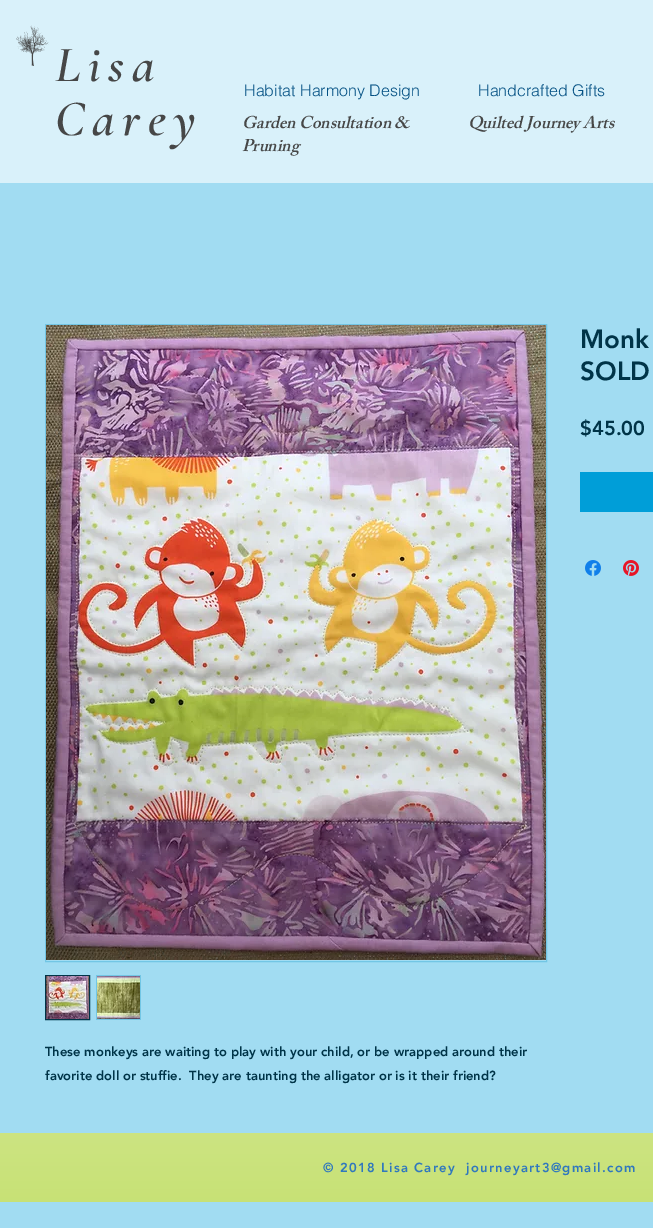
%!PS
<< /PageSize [653 1228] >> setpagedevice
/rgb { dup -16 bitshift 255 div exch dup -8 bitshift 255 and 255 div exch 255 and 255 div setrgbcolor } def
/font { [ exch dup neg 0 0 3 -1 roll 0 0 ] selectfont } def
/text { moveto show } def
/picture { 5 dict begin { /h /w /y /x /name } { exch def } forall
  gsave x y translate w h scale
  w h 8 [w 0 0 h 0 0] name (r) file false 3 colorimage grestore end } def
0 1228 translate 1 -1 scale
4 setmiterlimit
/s1 { /helvetica-Light 16 font 16#045184 rgb } def
/s2 { /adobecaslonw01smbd-SemiBoldItalic 17 font 16#464747 rgb } def
/s3 { /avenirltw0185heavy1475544-Black 26 font 16#003448 rgb } def
/s4 { /avenirltw0185heavy1475544-Black 20 font 16#003448 rgb } def
/s5 { /avenirltw0185heavy1475544-Black 13 font 16#003448 rgb } def
16#A1DCF2 rgb
0 0 653 1228 rectfill
16#D9F1FA rgb
0 0 653 183 rectfill
(pic1.raw) 16 25 33 41 picture
/CormorantGaramond-SemiBoldItalic 51 font
16#464747 rgb
55 81 moveto 7.5 0 (Lisa) ashow
55 135 moveto 7.5 0 (Carey) ashow
s1
(Habitat Harmony Design) 244 96 text
(Handcrafted Gifts) 478 96 text
s2
(Garden Consultation &) 242 128 text
(Pruning) 242 151 text
(Quilted Journey Arts) 468 128 text
s3
(Monk) 580 348 text
(SOLD) 580 380 text
s4
($45.00) 580 435 text
16#009ED8 rgb
580 472 73 40 rectfill
(pic2.raw) 585 560 16 16 picture
(pic3.raw) 623 560 16 16 picture
16#72C6E5 rgb
45.5 324.5 501 637 rectstroke
(pic4.raw) 46 325 500 635 picture
16#003448 rgb
45.5 975.5 44 44 rectstroke
(pic5.raw) 46 976 43 43 picture
16#72C6E5 rgb
96 975 45 45 rectfill
(pic6.raw) 97 976 43 43 picture
s5
(These monkeys are waiting to play with your child, or be wrapped around their) 45 1056 text
(favorite doll or stuffie.  They are taunting the alligator or is it their friend?) 45 1080 text
16#BADA55 rgb
0 1133 653 69 rectfill
(pic7.raw) 0 1133 653 69 picture
16#3078BE rgb
323 1172 moveto 1.3 0 (© 2018 Lisa Carey) ashow
466 1172 moveto 1.3 0 (journeyart3@gmail.com) ashow
showpage
